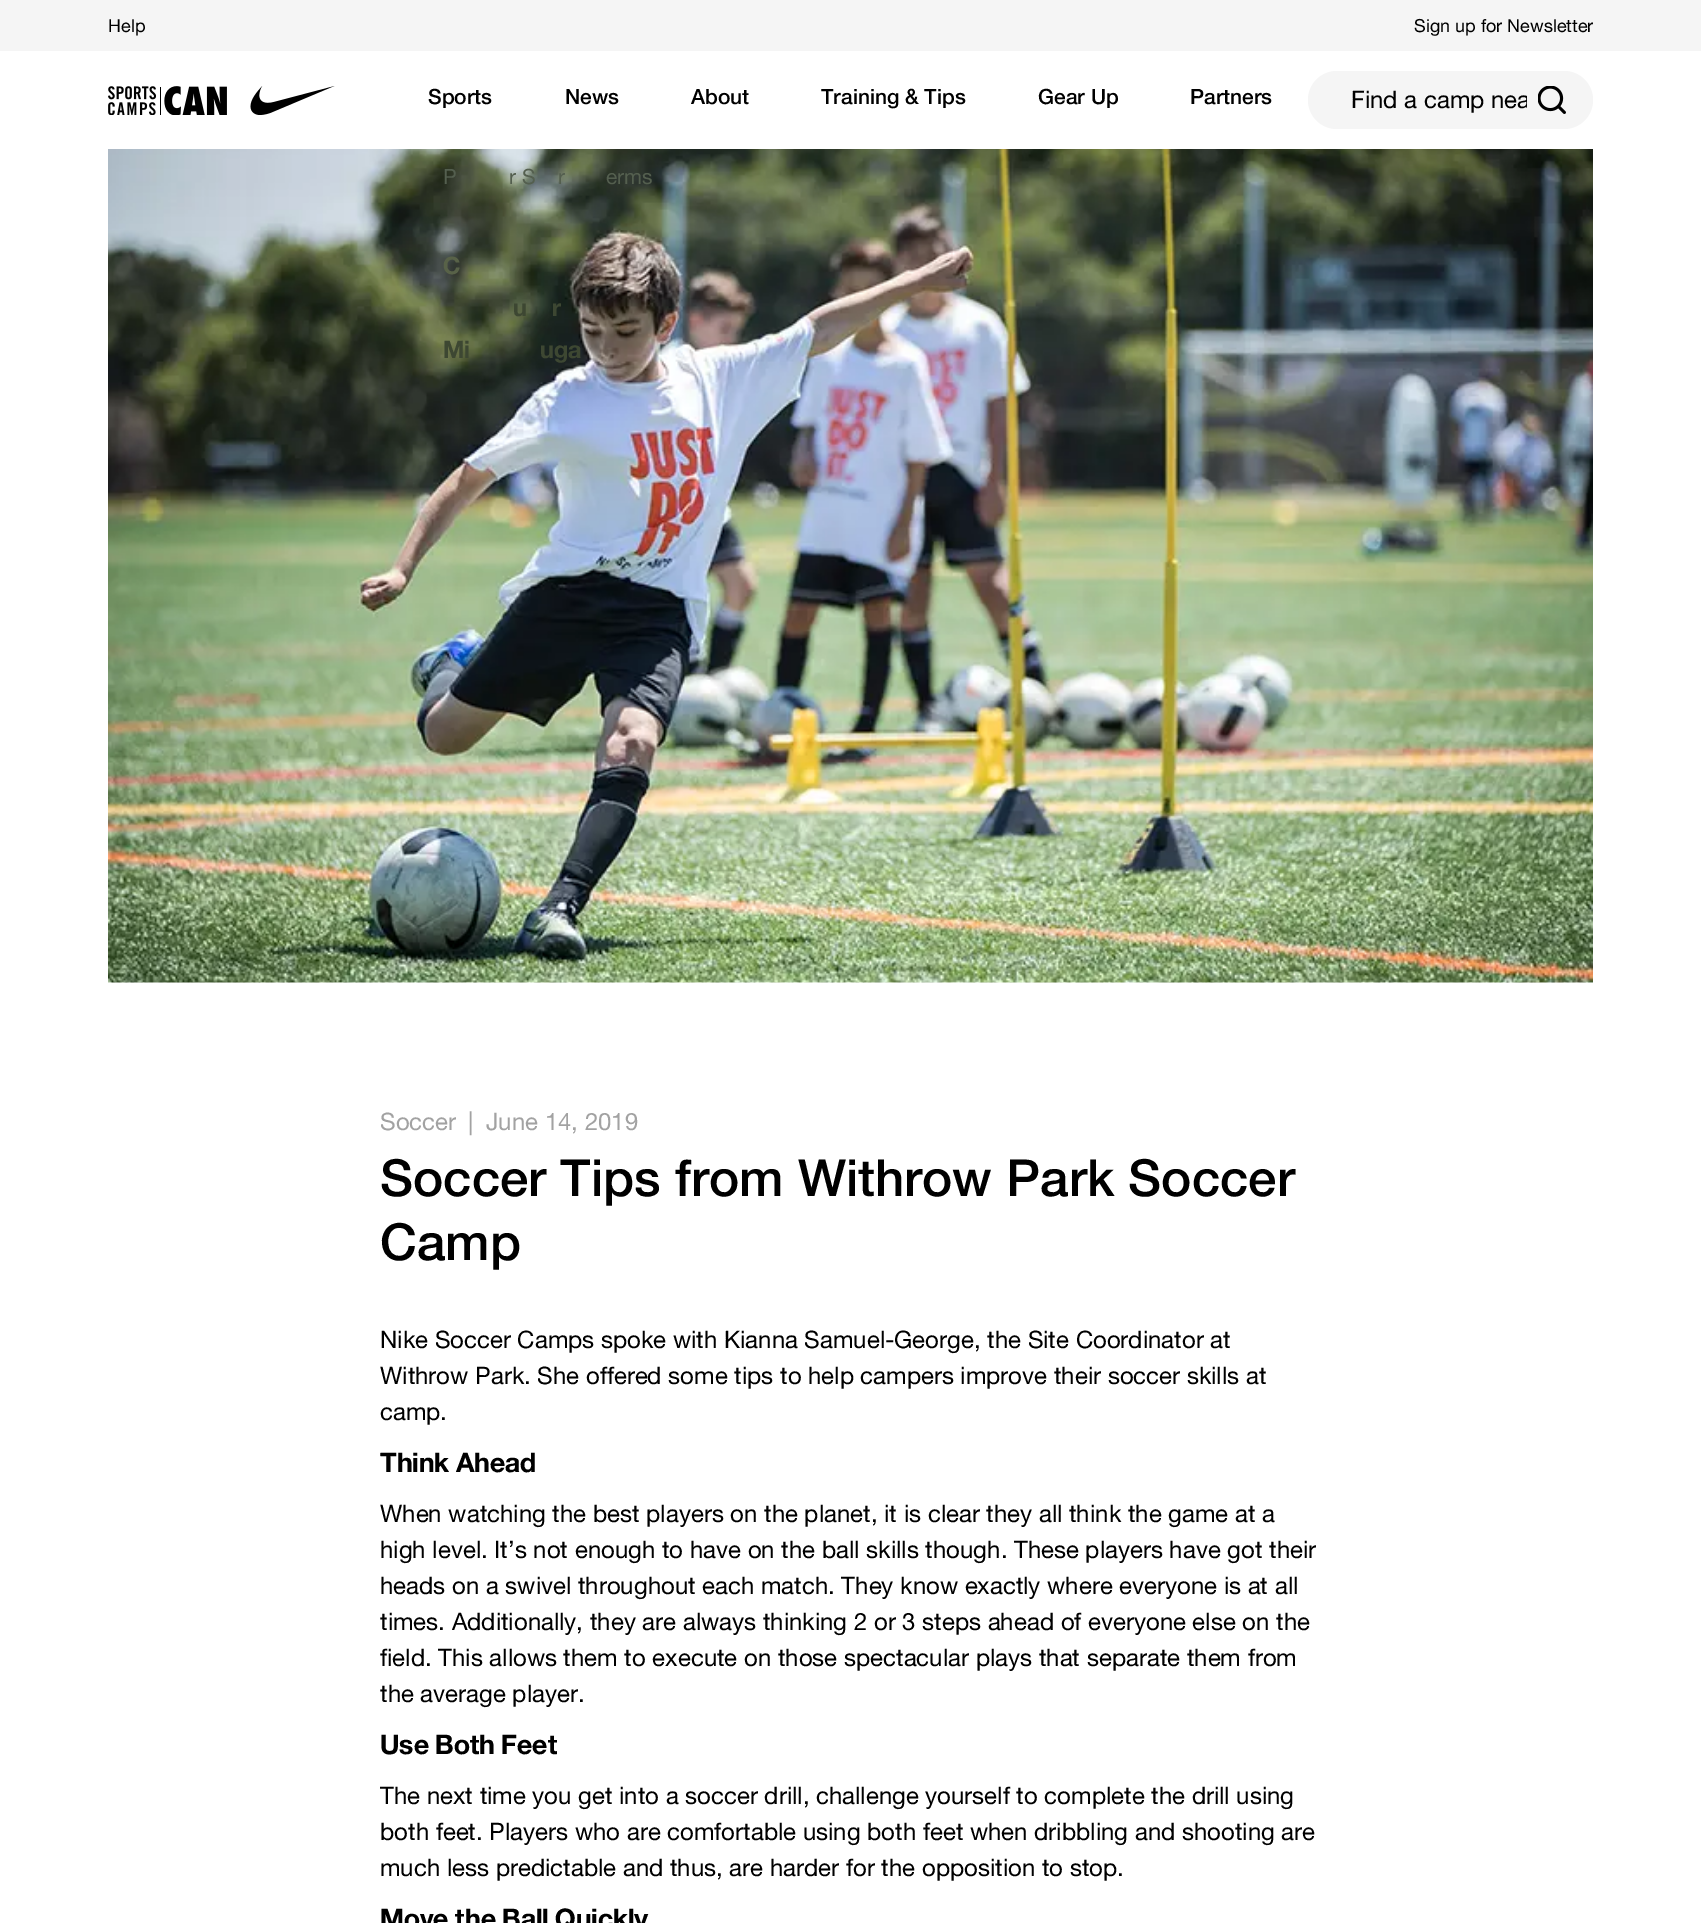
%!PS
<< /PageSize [1701 1923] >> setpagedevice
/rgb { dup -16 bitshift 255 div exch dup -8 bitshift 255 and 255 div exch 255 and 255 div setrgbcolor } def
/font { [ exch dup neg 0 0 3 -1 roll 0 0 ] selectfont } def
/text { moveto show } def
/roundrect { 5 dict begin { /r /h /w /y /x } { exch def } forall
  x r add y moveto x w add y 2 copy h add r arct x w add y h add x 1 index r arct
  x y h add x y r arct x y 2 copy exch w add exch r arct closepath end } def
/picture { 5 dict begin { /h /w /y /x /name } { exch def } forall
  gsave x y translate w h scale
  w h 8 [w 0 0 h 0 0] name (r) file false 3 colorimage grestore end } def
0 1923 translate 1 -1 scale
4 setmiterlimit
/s1 { /HelveticaNeue-Regular 18 font 16#000000 rgb } def
/s2 { /HelveticaNeue-Medium 21 font 16#000000 rgb } def
/s3 { /HelveticaNeue-Regular 24 font 16#000000 rgb } def
/s4 { /HelveticaNeue-Regular 21 font 16#545F4F rgb } def
/s5 { /HelveticaNeue-Bold 24 font 16#586248 rgb } def
/s6 { /HelveticaNeue-Bold 24 font 16#3D4732 rgb } def
/s7 { /HelveticaNeue-Regular 24 font 16#A2A2A2 rgb } def
/s8 { /HelveticaNeue-Medium 51 font 16#000000 rgb } def
/s9 { /HelveticaNeue-Bold 27 font 16#000000 rgb } def
16#FFFFFF rgb
0 0 1701 1923 rectfill
16#F5F5F5 rgb
0 0 1701 51 rectfill
s1
(Help) 108 32 text
(Sign up for Newsletter) 1414 32 text
(pic1.raw) 108 86 227 29 picture
s2
(Sports) 428 104 text
(News) 565 104 text
(About) 691 104 text
(Training & Tips) 821 104 text
(Gear Up) 1038 104 text
(Partners) 1190 104 text
16#F5F5F5 rgb
1308 71 285 58 29 roundrect fill
gsave
1350 86 177 27 rectclip
s3
(Find a camp nea) 1351 108 text
grestore
(pic2.raw) 1538 86 28 28 picture
(pic3.raw) 108 149 1485 834 picture
s4
(P) 443 184 text
(r S) 509 184 text
(r) 558 184 text
(erms) 606 184 text
s5
(C) 443 274 text
s6
(u) 513 316 text
(r) 552 316 text
(Mi) 443 358 text
(uga) 540 358 text
s7
(Soccer) 380 1130 text
(|) 468 1130 text
(June 14, 2019) 486 1130 text
s8
(Soccer Tips from Withrow Park Soccer) 380 1196 text
(Camp) 380 1260 text
s3
(Nike Soccer Camps spoke with Kianna Samuel-George, the Site Coordinator at) 380 1348 text
(Withrow Park. She offered some tips to help campers improve their soccer skills at) 380 1384 text
(camp.) 380 1420 text
s9
(Think Ahead) 380 1472 text
s3
(When watching the best players on the planet, it is clear they all think the game at a) 380 1522 text
(high level. It’s not enough to have on the ball skills though. These players have got their) 380 1558 text
(heads on a swivel throughout each match. They know exactly where everyone is at all) 380 1594 text
(times. Additionally, they are always thinking 2 or 3 steps ahead of everyone else on the) 380 1630 text
(field. This allows them to execute on those spectacular plays that separate them from) 380 1666 text
(the average player.) 380 1702 text
s9
(Use Both Feet) 380 1754 text
s3
(The next time you get into a soccer drill, challenge yourself to complete the drill using) 380 1804 text
(both feet. Players who are comfortable using both feet when dribbling and shooting are) 380 1840 text
(much less predictable and thus, are harder for the opposition to stop.) 380 1876 text
s9
(Move the Ball Quickly) 380 1928 text
showpage
